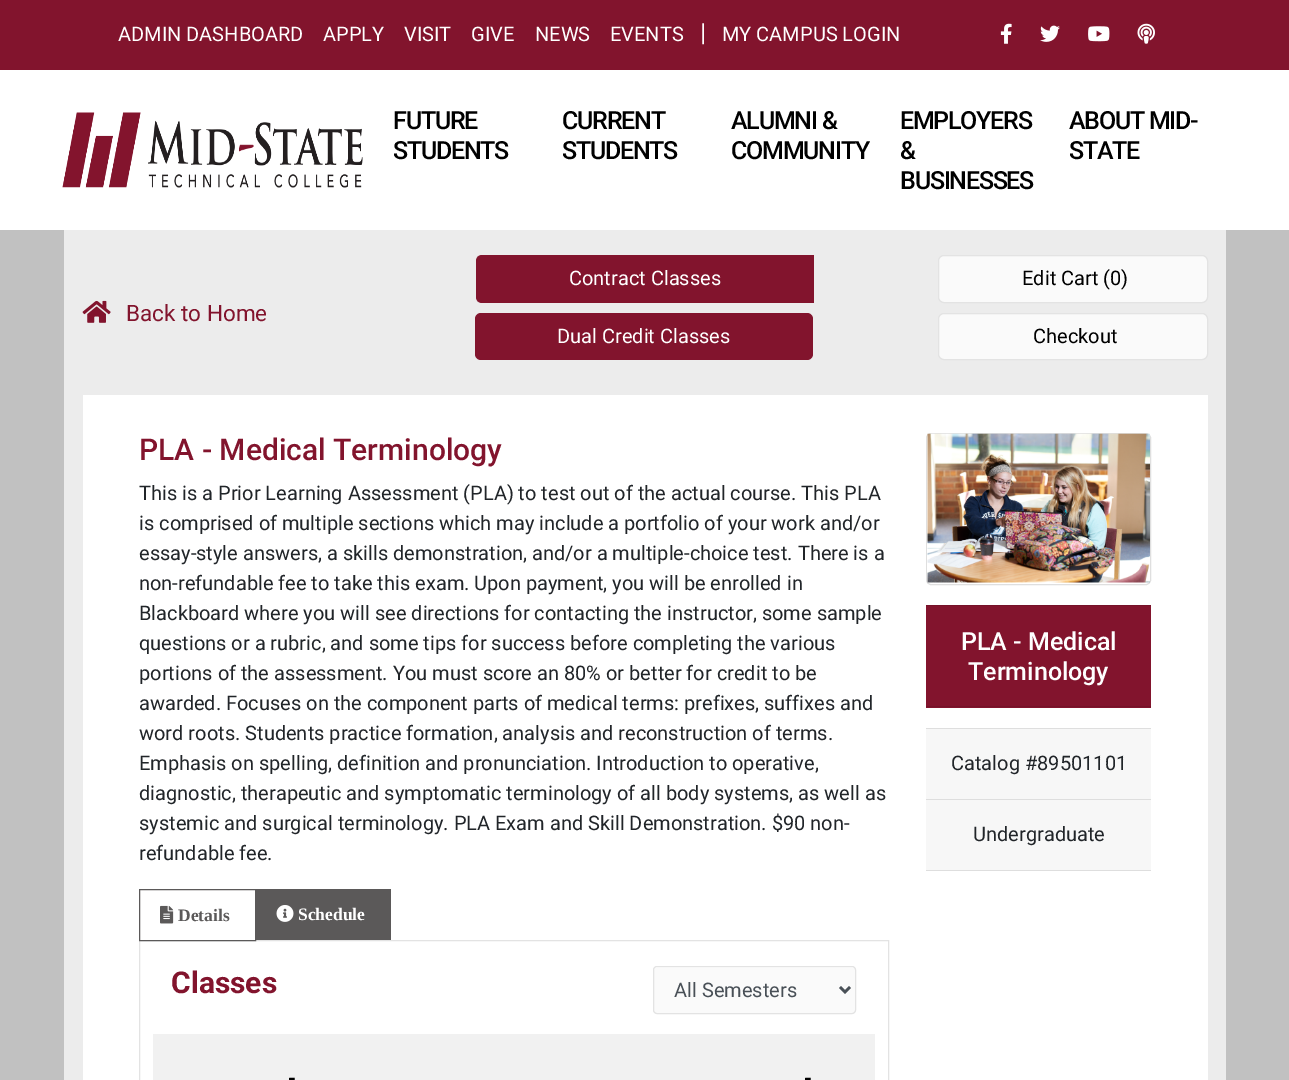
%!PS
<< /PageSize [1289 1080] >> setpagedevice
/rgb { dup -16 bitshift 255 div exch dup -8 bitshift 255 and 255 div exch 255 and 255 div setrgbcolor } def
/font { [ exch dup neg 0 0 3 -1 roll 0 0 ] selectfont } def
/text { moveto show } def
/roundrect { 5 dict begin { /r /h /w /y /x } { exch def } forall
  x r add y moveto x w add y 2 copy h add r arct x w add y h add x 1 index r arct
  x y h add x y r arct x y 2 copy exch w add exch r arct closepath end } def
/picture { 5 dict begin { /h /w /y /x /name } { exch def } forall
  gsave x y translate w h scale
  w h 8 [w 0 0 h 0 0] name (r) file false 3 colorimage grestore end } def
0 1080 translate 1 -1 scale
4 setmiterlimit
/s1 { /Roboto-Regular 20 font 16#FFFFFF rgb } def
/s2 { /Roboto-Regular 25 font 16#FFFFFF rgb } def
/s3 { /Roboto-Regular 22.5 font 16#82142D rgb } def
/s4 { /Roboto-Regular 20 font 16#000000 rgb } def
/s5 { /Roboto-Medium 30 font 16#82142D rgb } def
/s6 { /Roboto-Regular 20 font 16#212529 rgb } def
/s7 { /LiberationSerif-Bold 17.5 font 16#5B5959 rgb } def
/s8 { /LiberationSerif-Bold 17.5 font 16#FFFFFF rgb } def
/s9 { /Roboto-Bold 30 font 16#82142D rgb } def
/s10 { /Roboto-Regular 20 font 16#495057 rgb } def
/s11 { /Roboto-Bold 20 font 16#000000 rgb } def
/s12 { /Roboto-Medium 25 font 16#FFFFFF rgb } def
16#C1C1C1 rgb
0 0 1289 1080 rectfill
16#82142D rgb
0 0 1289 70 rectfill
s1
(ADMIN DASHBOARD) 118 41 text
(APPLY) 323 41 text
(VISIT) 404 41 text
(GIVE) 471 41 text
(NEWS) 535 41 text
(EVENTS) 610 41 text
s2
(|) 700 41 text
s1
(MY CAMPUS LOGIN) 722 41 text
(pic1.raw) 1000 23 12 21 picture
(pic2.raw) 1040 25 20 17 picture
(pic3.raw) 1088 26 22 16 picture
(pic4.raw) 1137 23 18 21 picture
0 70 1289 160 rectfill
(pic5.raw) 62 112 301 76 picture
/Roboto-Medium 25 font
16#000000 rgb
393 129 moveto -1.25 0 (FUTURE) ashow
393 159 moveto -1.25 0 (STUDENTS) ashow
562 129 moveto -1.25 0 (CURRENT) ashow
562 159 moveto -1.25 0 (STUDENTS) ashow
731 129 moveto -1.25 0 (ALUMNI &) ashow
731 159 moveto -1.25 0 (COMMUNITY) ashow
900 129 moveto -1.25 0 (EMPLOYERS) ashow
900 159 moveto -1.25 0 (&) ashow
900 189 moveto -1.25 0 (BUSINESSES) ashow
1069 129 moveto -1.25 0 (ABOUT MID-) ashow
1069 159 moveto -1.25 0 (STATE) ashow
16#ECECEC rgb
64 230 1162 850 rectfill
(pic6.raw) 82 300 29 23 picture
s3
(Back to Home) 126 321 text
482 255 moveto 814 255 lineto 814 303 lineto 482 303 lineto 478.5 303 476 300.5 476 297 curveto 476 261 lineto 476 257.5 478.5 255 482 255 curveto closepath fill
s1
(Contract Classes) 569 285 text
16#82142D rgb
475 313 338 47 6 roundrect fill
s1
(Dual Credit Classes) 557 343 text
16#FAFAFA rgb
938.5 255.5 269 47 5.5 roundrect gsave fill grestore
16#E3E3E3 rgb
stroke
s4
(Edit Cart \(0\)) 1022 285 text
16#FAFAFA rgb
938.5 313.5 269 46 5.5 roundrect gsave fill grestore
16#E3E3E3 rgb
stroke
s4
(Checkout) 1033 343 text
16#FFFFFF rgb
83 395 1125 685 rectfill
s5
(PLA - Medical Terminology) 139 460 text
s6
(This is a Prior Learning Assessment \(PLA\) to test out of the actual course. This PLA) 139 500 text
(is comprised of multiple sections which may include a portfolio of your work and/or) 139 530 text
(essay-style answers, a skills demonstration, and/or a multiple-choice test. There is a) 139 560 text
(non-refundable fee to take this exam. Upon payment, you will be enrolled in) 139 590 text
(Blackboard where you will see directions for contacting the instructor, some sample) 139 620 text
(questions or a rubric, and some tips for success before completing the various) 139 650 text
(portions of the assessment. You must score an 80% or better for credit to be) 139 680 text
(awarded. Focuses on the component parts of medical terms: prefixes, suffixes and) 139 710 text
(word roots. Students practice formation, analysis and reconstruction of terms.) 139 740 text
(Emphasis on spelling, definition and pronunciation. Introduction to operative,) 139 770 text
(diagnostic, therapeutic and symptomatic terminology of all body systems, as well as) 139 800 text
(systemic and surgical terminology. PLA Exam and Skill Demonstration. $90 non-) 139 830 text
(refundable fee.) 139 860 text
16#E3E3E3 rgb
139.5 940.5 749 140 rectstroke
16#5B5959 rgb
139.5 889.5 116 51 rectstroke
(pic7.raw) 160 905 14 19 picture
s7
(Details) 178 921 text
256 889 135 51 rectfill
(pic8.raw) 276 905 18 17 picture
s8
(Schedule) 298 920 text
s9
(Classes) 171 993 text
16#FAFAFA rgb
654 968 201 45 2.5 roundrect fill
16#E3E3E3 rgb
653.5 966.5 202 47 3.5 roundrect stroke
16#495057 rgb
2.5 setlinewidth
840 987 moveto 845 992 lineto 850 987 lineto stroke
s10
(All Semesters) 674 997 text
16#F1F1F1 rgb
153 1034 722 46 rectfill
s11
(-) 288 1085 text
(-) 804 1085 text
16#DFDFDF rgb
1 setlinewidth
926.5 433.5 224 151 4.5 roundrect stroke
(pic9.raw) 927 433 223 150 picture
16#82142D rgb
926 606 225 102 rectfill
16#751229 rgb
926 605 225 1 rectfill
s12
(PLA - Medical) 961 650 text
(Terminology) 968 680 text
16#751229 rgb
926 706 225 1 rectfill
16#F7F7F7 rgb
926 729 225 141 rectfill
16#DEDEDE rgb
926 728 225 1 rectfill
s6
(Catalog #89501101) 951 770 text
16#DEDEDE rgb
926 799 225 1 rectfill
s6
(Undergraduate) 973 841 text
16#DEDEDE rgb
926 870 225 1 rectfill
showpage
